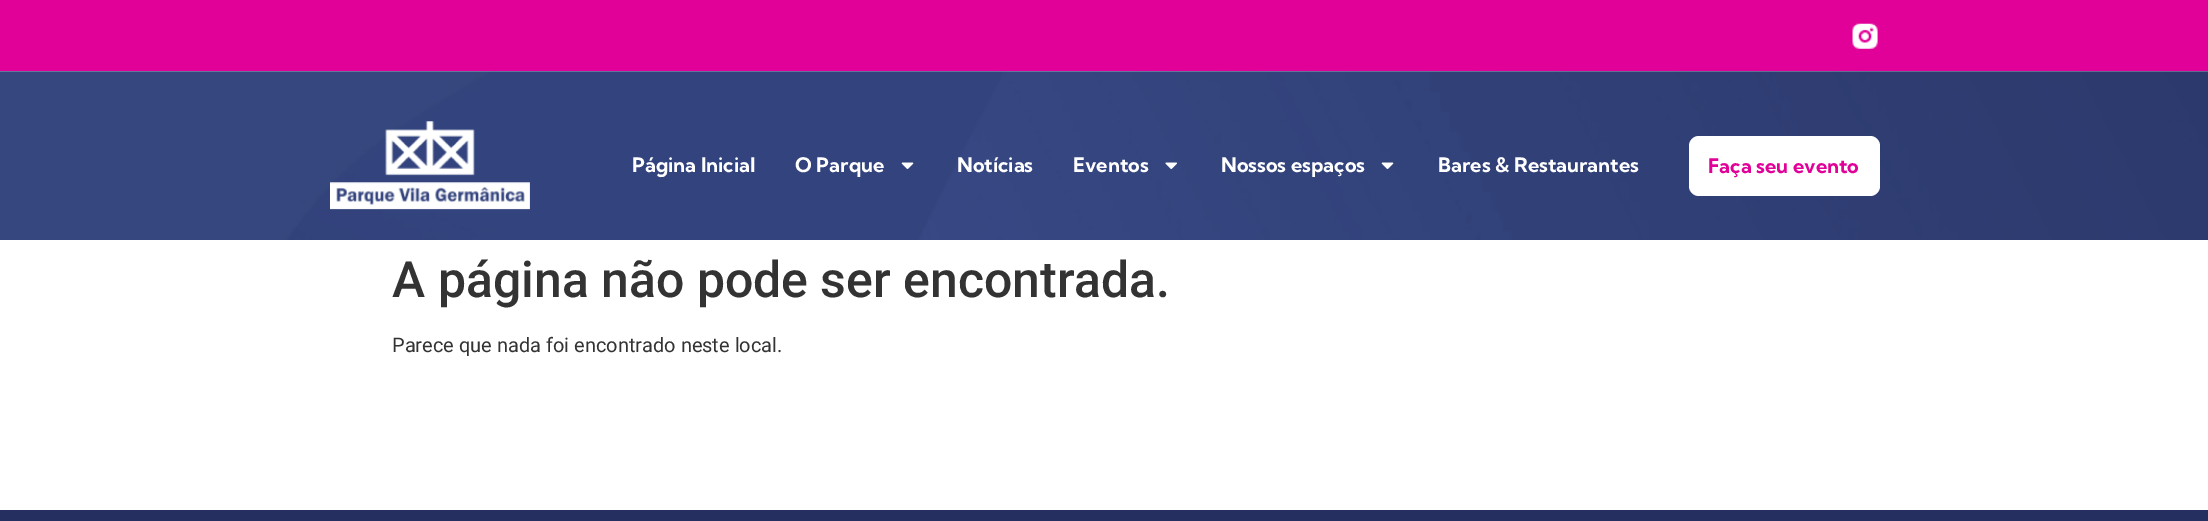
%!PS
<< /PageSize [2208 521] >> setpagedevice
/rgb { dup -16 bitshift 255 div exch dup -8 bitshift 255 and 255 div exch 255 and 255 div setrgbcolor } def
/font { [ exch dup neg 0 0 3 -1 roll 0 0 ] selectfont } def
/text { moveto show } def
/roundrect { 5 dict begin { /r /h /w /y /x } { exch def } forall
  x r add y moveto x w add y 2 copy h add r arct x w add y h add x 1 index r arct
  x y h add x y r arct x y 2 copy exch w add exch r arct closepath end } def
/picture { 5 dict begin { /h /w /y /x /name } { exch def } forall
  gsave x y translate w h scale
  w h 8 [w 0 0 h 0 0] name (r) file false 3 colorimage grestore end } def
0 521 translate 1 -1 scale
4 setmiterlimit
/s1 { /KumbhSans-Bold 20 font 16#FFFFFF rgb } def
/s2 { /KumbhSans-Bold 20 font 16#E10098 rgb } def
/s3 { /Roboto-Medium 50 font 16#333333 rgb } def
/s4 { /Roboto-Regular 20 font 16#333333 rgb } def
16#FFFFFF rgb
0 0 2208 521 rectfill
16#E10098 rgb
0 0 2208 71 rectfill
(pic1.raw) 1852 23 26 26 picture
(pic2.raw) 0 71 2208 169 picture
(pic3.raw) 330 121 200 89 picture
s1
(Página Inicial) 632 172 text
(O Parque) 795 172 text
(pic4.raw) 901 162 13 7 picture
(Notícias) 957 172 text
(Eventos) 1073 172 text
(pic5.raw) 1165 162 12 7 picture
(Nossos espaços) 1221 172 text
(pic6.raw) 1381 162 13 7 picture
(Bares & Restaurantes) 1438 172 text
1689 136 191 60 10 roundrect fill
s2
(Faça seu evento) 1708 173 text
s3
(A página não pode ser encontrada.) 392 297 text
s4
(Parece que nada foi encontrado neste local.) 392 352 text
16#253060 rgb
0 510 2208 11 rectfill
showpage
